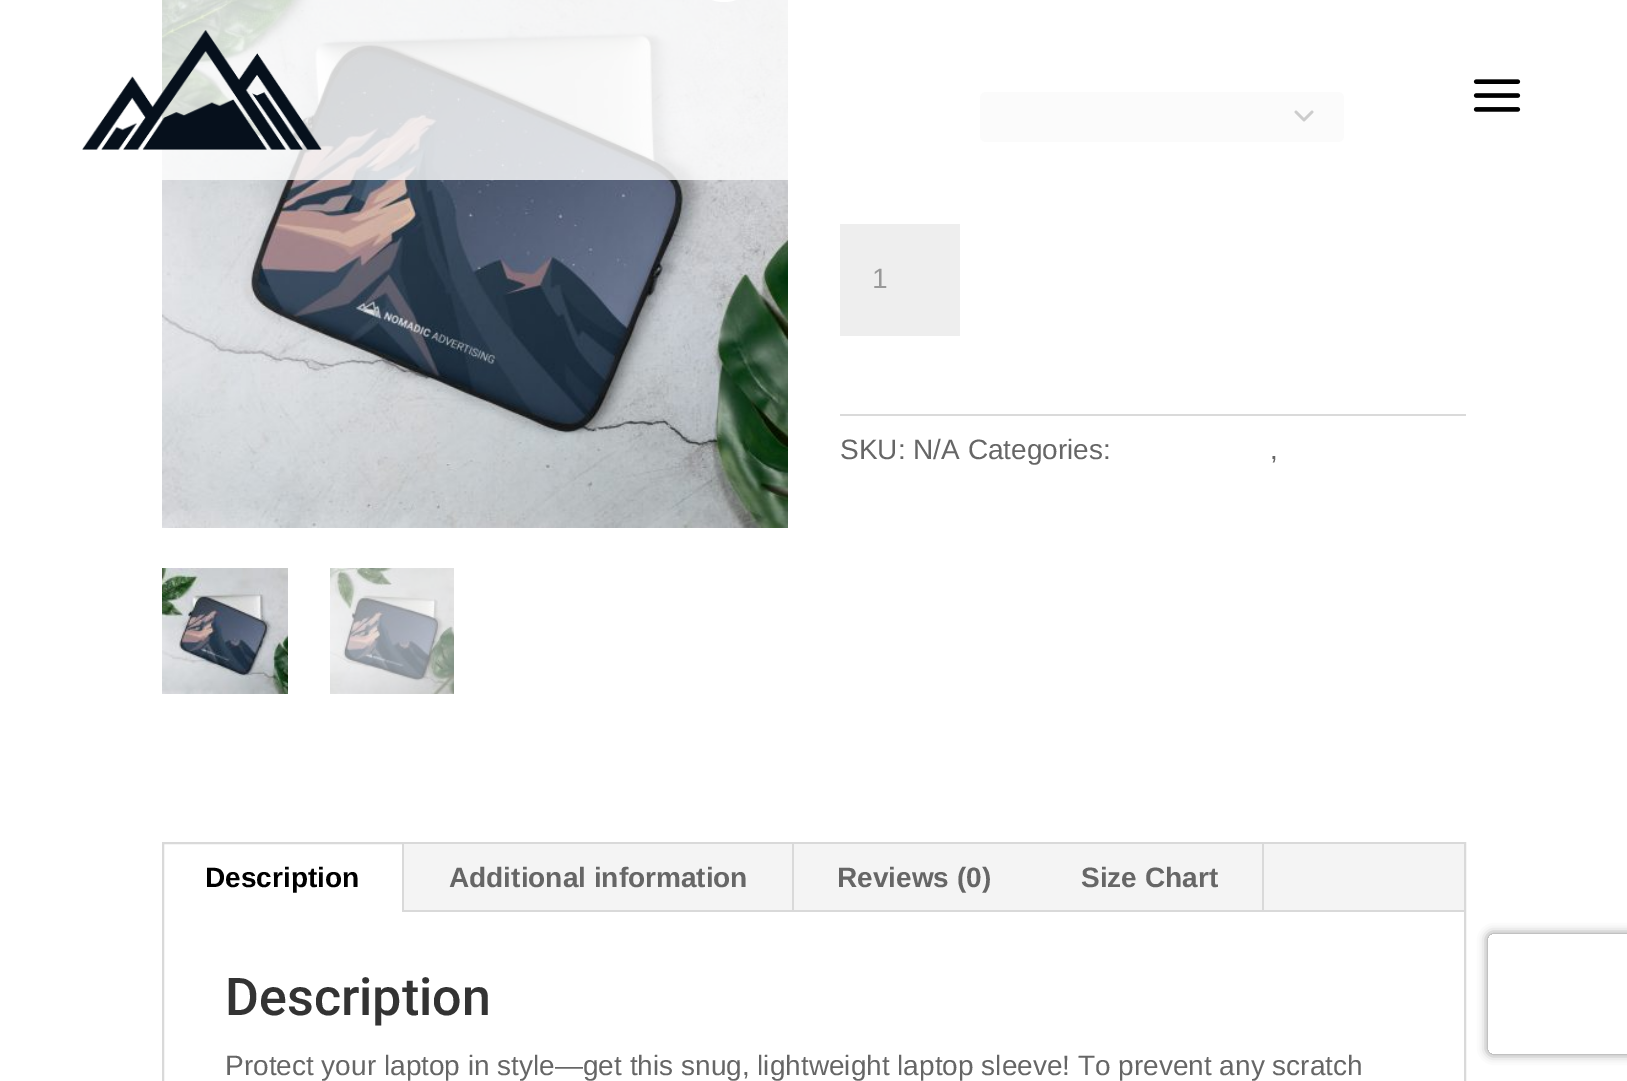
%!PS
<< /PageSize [1627 1081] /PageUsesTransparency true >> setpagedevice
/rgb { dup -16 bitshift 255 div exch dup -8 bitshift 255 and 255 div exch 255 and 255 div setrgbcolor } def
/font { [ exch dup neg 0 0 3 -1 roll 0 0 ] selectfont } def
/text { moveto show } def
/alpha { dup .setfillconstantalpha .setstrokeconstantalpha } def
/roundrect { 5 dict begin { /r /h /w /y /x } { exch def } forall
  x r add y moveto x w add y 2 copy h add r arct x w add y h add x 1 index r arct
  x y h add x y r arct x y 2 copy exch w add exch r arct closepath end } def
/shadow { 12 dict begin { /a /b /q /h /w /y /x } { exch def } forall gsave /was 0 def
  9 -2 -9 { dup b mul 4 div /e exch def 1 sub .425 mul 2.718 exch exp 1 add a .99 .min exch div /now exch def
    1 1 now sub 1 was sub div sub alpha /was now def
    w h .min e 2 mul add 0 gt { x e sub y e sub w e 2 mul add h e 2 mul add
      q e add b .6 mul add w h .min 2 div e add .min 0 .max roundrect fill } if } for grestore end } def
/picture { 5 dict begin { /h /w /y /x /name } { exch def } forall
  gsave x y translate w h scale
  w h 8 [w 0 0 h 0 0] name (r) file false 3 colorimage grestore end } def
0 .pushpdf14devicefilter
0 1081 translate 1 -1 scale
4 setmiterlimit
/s1 { /LiberationSans-Regular 28 font 16#999999 rgb } def
/s2 { /LiberationSans-Regular 28 font 16#666666 rgb } def
/s3 { /LiberationSans-Bold 28 font 16#000000 rgb } def
/s4 { /LiberationSans-Bold 28 font 16#666666 rgb } def
/s5 { /Roboto-Medium 52 font 16#333333 rgb } def
16#FFFFFF rgb
0 0 1627 1081 rectfill
(pic3.raw) 162 0 626 528 picture
688 -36 72 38 36 roundrect fill
16#ECECEC rgb
980 92 364 50 6 roundrect fill
16#000000 rgb
2.7 setlinewidth
1 setlinecap
1 setlinejoin
1296 112 moveto 1304 120 lineto 1312 112 lineto stroke
0.8 alpha
16#FFFFFF rgb
162 0 1182 180 rectfill
1 alpha
(pic1.raw) 82 30 240 120 picture
(pic2.raw) 1473 79 48 33 picture
(pic4.raw) 162 568 126 126 picture
(pic5.raw) 330 568 124 126 picture
16#EEEEEE rgb
840 224 120 112 rectfill
s1
(1) 872 288 text
16#DADADA rgb
840 414 626 2 rectfill
s2
(SKU: N/A Categories:) 840 459 text
(,) 1270 459 text
16#D9D9D9 rgb
2 setlinewidth
0 setlinecap
0 setlinejoin
163 843 1302 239 rectstroke
16#F4F4F4 rgb
404 844 1060 66 rectfill
16#D9D9D9 rgb
402 844 2 68 rectfill
s3
(Description) 205 887 text
16#D9D9D9 rgb
792 844 2 68 rectfill
s4
(Additional information) 449 887 text
(Reviews \(0\)) 837 887 text
16#D9D9D9 rgb
1262 844 2 68 rectfill
s4
(Size Chart) 1081 887 text
16#D9D9D9 rgb
404 910 1060 2 rectfill
s5
(Description) 225 1015 text
s2
(Protect your laptop in style—get this snug, lightweight laptop sleeve! To prevent any scratch) 225 1075 text
gsave
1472 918 moveto 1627 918 lineto 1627 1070 lineto 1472 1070 lineto closepath 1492 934 moveto 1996 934 lineto 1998 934 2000 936 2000 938 curveto 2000 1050 lineto 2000 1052 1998 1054 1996 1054 curveto 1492 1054 lineto 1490 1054 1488 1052 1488 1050 curveto 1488 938 lineto 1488 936 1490 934 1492 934 curveto closepath eoclip newpath
16#808080 rgb
1488 934 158 120 4 5 1 shadow
grestore
.poppdf14devicefilter showpage
